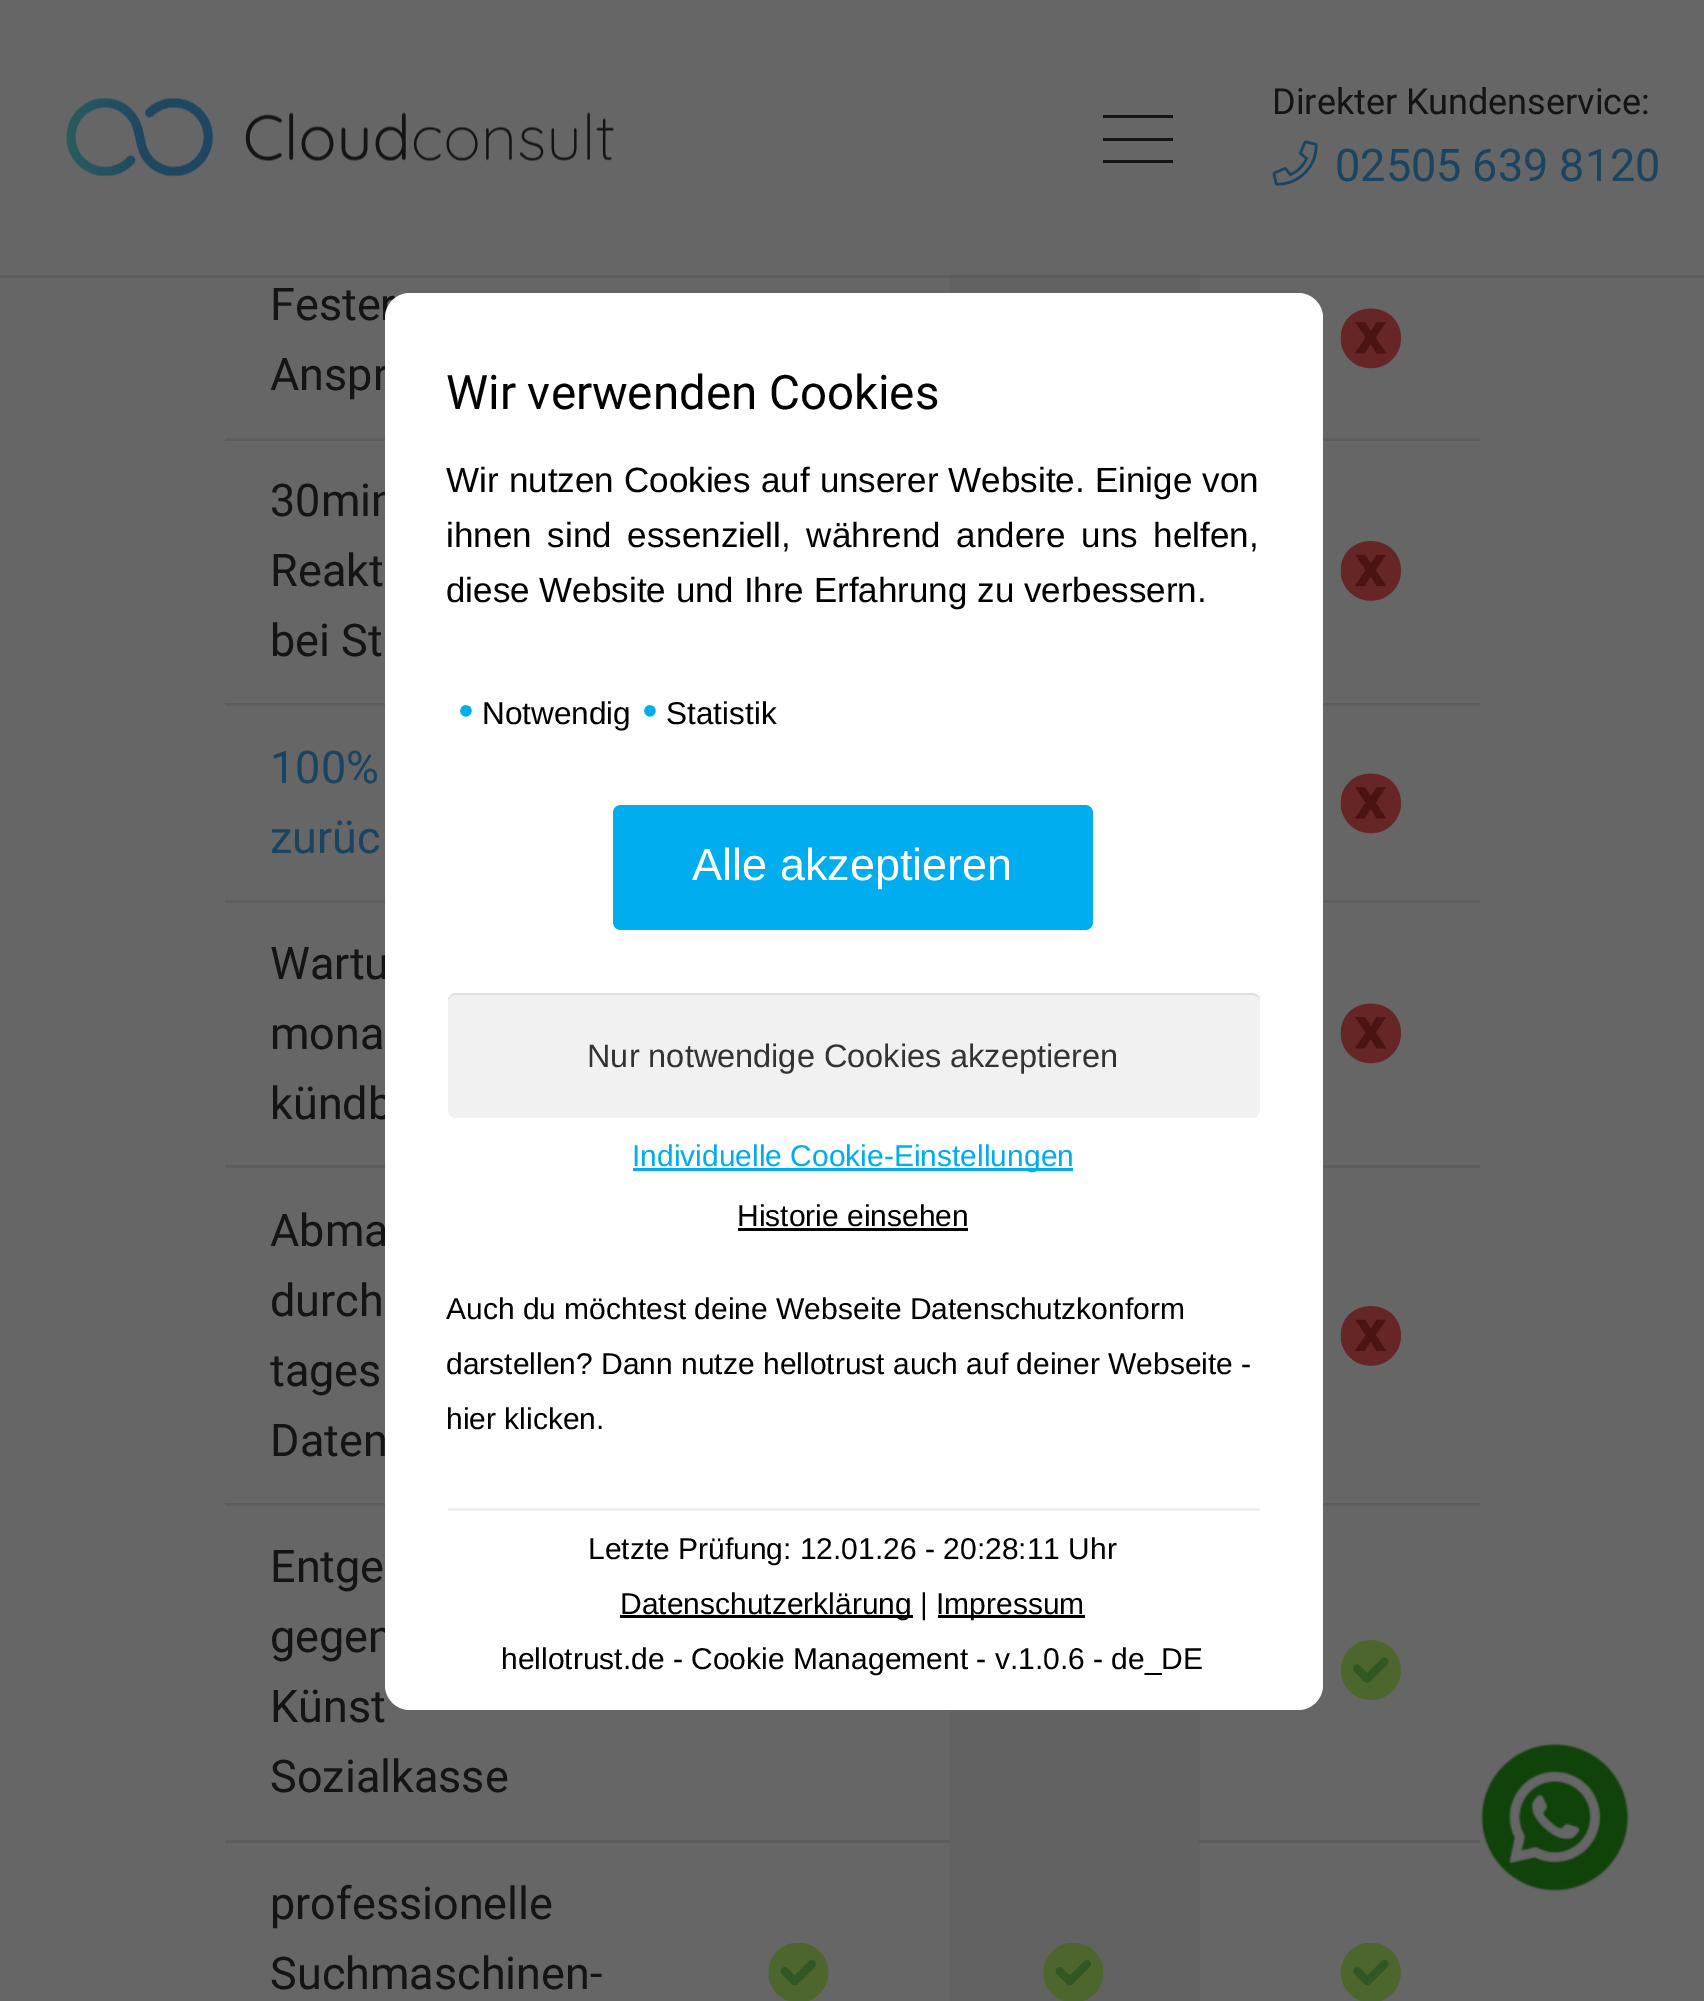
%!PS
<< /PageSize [1704 2001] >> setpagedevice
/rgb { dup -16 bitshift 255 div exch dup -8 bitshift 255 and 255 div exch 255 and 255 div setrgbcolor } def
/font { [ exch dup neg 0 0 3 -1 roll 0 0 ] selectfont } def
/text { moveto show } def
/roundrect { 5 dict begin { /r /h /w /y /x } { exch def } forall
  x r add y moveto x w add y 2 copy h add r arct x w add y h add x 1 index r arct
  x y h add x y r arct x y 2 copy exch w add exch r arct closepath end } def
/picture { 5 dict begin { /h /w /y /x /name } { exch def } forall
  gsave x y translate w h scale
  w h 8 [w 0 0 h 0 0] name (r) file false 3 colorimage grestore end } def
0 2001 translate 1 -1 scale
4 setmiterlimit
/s1 { /Roboto-Regular 36 font 16#141414 rgb } def
/s2 { /Roboto-Regular 45 font 16#194462 rgb } def
/s3 { /Roboto-Regular 45 font 16#141414 rgb } def
/s4 { /Roboto-Regular 47.5 font 16#000000 rgb } def
/s5 { /LiberationSans-Regular 35 font 16#000000 rgb } def
/s6 { /LiberationSans-Bold 40 font 16#00ADEF rgb } def
/s7 { /LiberationSans-Regular 31.5 font 16#000000 rgb } def
/s8 { /LiberationSans-Regular 45 font 16#FFFFFF rgb } def
/s9 { /LiberationSans-Regular 32.5 font 16#333333 rgb } def
/s10 { /LiberationSans-Regular 30 font 16#00ADEF rgb } def
/s11 { /LiberationSans-Regular 30 font 16#000000 rgb } def
16#666666 rgb
0 0 1704 2001 rectfill
16#5E5E5E rgb
0 275 1704 3 rectfill
(pic1.raw) 66 98 548 79 picture
16#141414 rgb
1103 138 70 3 rectfill
1103 115 70 3 rectfill
1103 160 70 3 rectfill
s1
(Direkter Kundenservice:) 1272 114 text
(pic2.raw) 1272 140 46 46 picture
s2
(02505 639 8120) 1335 181 text
16#626262 rgb
950 278 250 15 rectfill
16#5A5A5A rgb
950 275 250 3 rectfill
16#5D5D5D rgb
225 438 160 3 rectfill
s3
(Fester) 270 320 text
(Anspr) 270 390 text
16#5D5D5D rgb
1323 438 157 3 rectfill
(pic3.raw) 1340 308 61 61 picture
225 703 160 3 rectfill
s3
(30min) 270 516 text
(Reakt) 270 586 text
(bei St) 270 656 text
16#5D5D5D rgb
1323 703 157 3 rectfill
(pic4.raw) 1340 541 61 60 picture
225 900 160 3 rectfill
s2
(100%) 270 783 text
(zurüc) 270 853 text
16#5D5D5D rgb
1323 900 157 3 rectfill
(pic3.raw) 1340 773 61 61 picture
225 1165 160 3 rectfill
s3
(Wartu) 270 979 text
(mona) 270 1049 text
(kündb) 270 1119 text
16#5D5D5D rgb
1323 1165 157 3 rectfill
(pic3.raw) 1340 1003 61 61 picture
225 1503 160 3 rectfill
s3
(Abma) 270 1246 text
(durch) 270 1316 text
(tages) 270 1386 text
(Daten) 270 1456 text
16#5D5D5D rgb
1323 1503 157 3 rectfill
(pic4.raw) 1340 1306 61 60 picture
s3
(Entge) 270 1582 text
(gegen) 270 1652 text
(Künst) 270 1722 text
(Sozialkasse) 270 1792 text
16#626262 rgb
950 1710 250 291 rectfill
16#5D5D5D rgb
1198 1840 282 3 rectfill
(pic5.raw) 1340 1640 61 61 picture
225 1840 725 3 rectfill
s3
(professionelle) 270 1919 text
(Suchmaschinen-) 270 1989 text
(pic6.raw) 768 1943 61 58 picture
(pic7.raw) 1043 1943 61 58 picture
(pic8.raw) 1340 1943 61 58 picture
16#FFFFFF rgb
385 293 938 1417 25 roundrect fill
s4
(Wir verwenden Cookies) 446 409 text
/LiberationSans-Regular 35 font
446 492 moveto 0.5 0 32 (Wir nutzen Cookies auf unserer Website. Einige von) widthshow
446 547 moveto 6 0 32 (ihnen sind essenziell, während andere uns helfen,) widthshow
(diese Website und Ihre Erfahrung zu verbessern.) 446 602 text
s6
(•) 459 724 text
s7
(Notwendig) 482 724 text
s6
(•) 643 724 text
s7
(Statistik) 666 724 text
16#00ADEF rgb
613 805 480 125 8 roundrect fill
s8
(Alle akzeptieren) 692 880 text
16#F1F1F1 rgb
448 993 812 125 8 roundrect fill
16#DEDEDE rgb
455 995 moveto 1252 995 lineto 1257 995 1260 998 1260 1002 curveto 1260 1001 lineto 1260 997 1256 993 1252 993 curveto 456 993 lineto 452 993 448 997 448 1001 curveto 448 1002 lineto 448 998 451 995 455 995 curveto closepath fill
s9
(Nur notwendige Cookies akzeptieren) 587 1067 text
16#00ADEF rgb
633 1168 440 3 rectfill
s10
(Individuelle Cookie-Einstellungen) 632 1166 text
s11
(Historie einsehen) 737 1226 text
738 1228 230 3 rectfill
(Auch du möchtest deine Webseite Datenschutzkonform) 446 1319 text
(darstellen? Dann nutze hellotrust auch auf deiner Webseite -) 446 1374 text
(hier klicken.) 446 1429 text
16#EEEEEE rgb
448 1508 812 3 rectfill
s11
(Letzte Prüfung: 12.01.26 - 20:28:11 Uhr) 588 1559 text
620 1615 293 3 rectfill
(Datenschutzerklärung |) 620 1614 text
938 1615 147 3 rectfill
(Impressum) 936 1614 text
(hellotrust.de - Cookie Management - v.1.0.6 - de_DE) 501 1669 text
(pic9.raw) 1481 1743 148 149 picture
showpage
